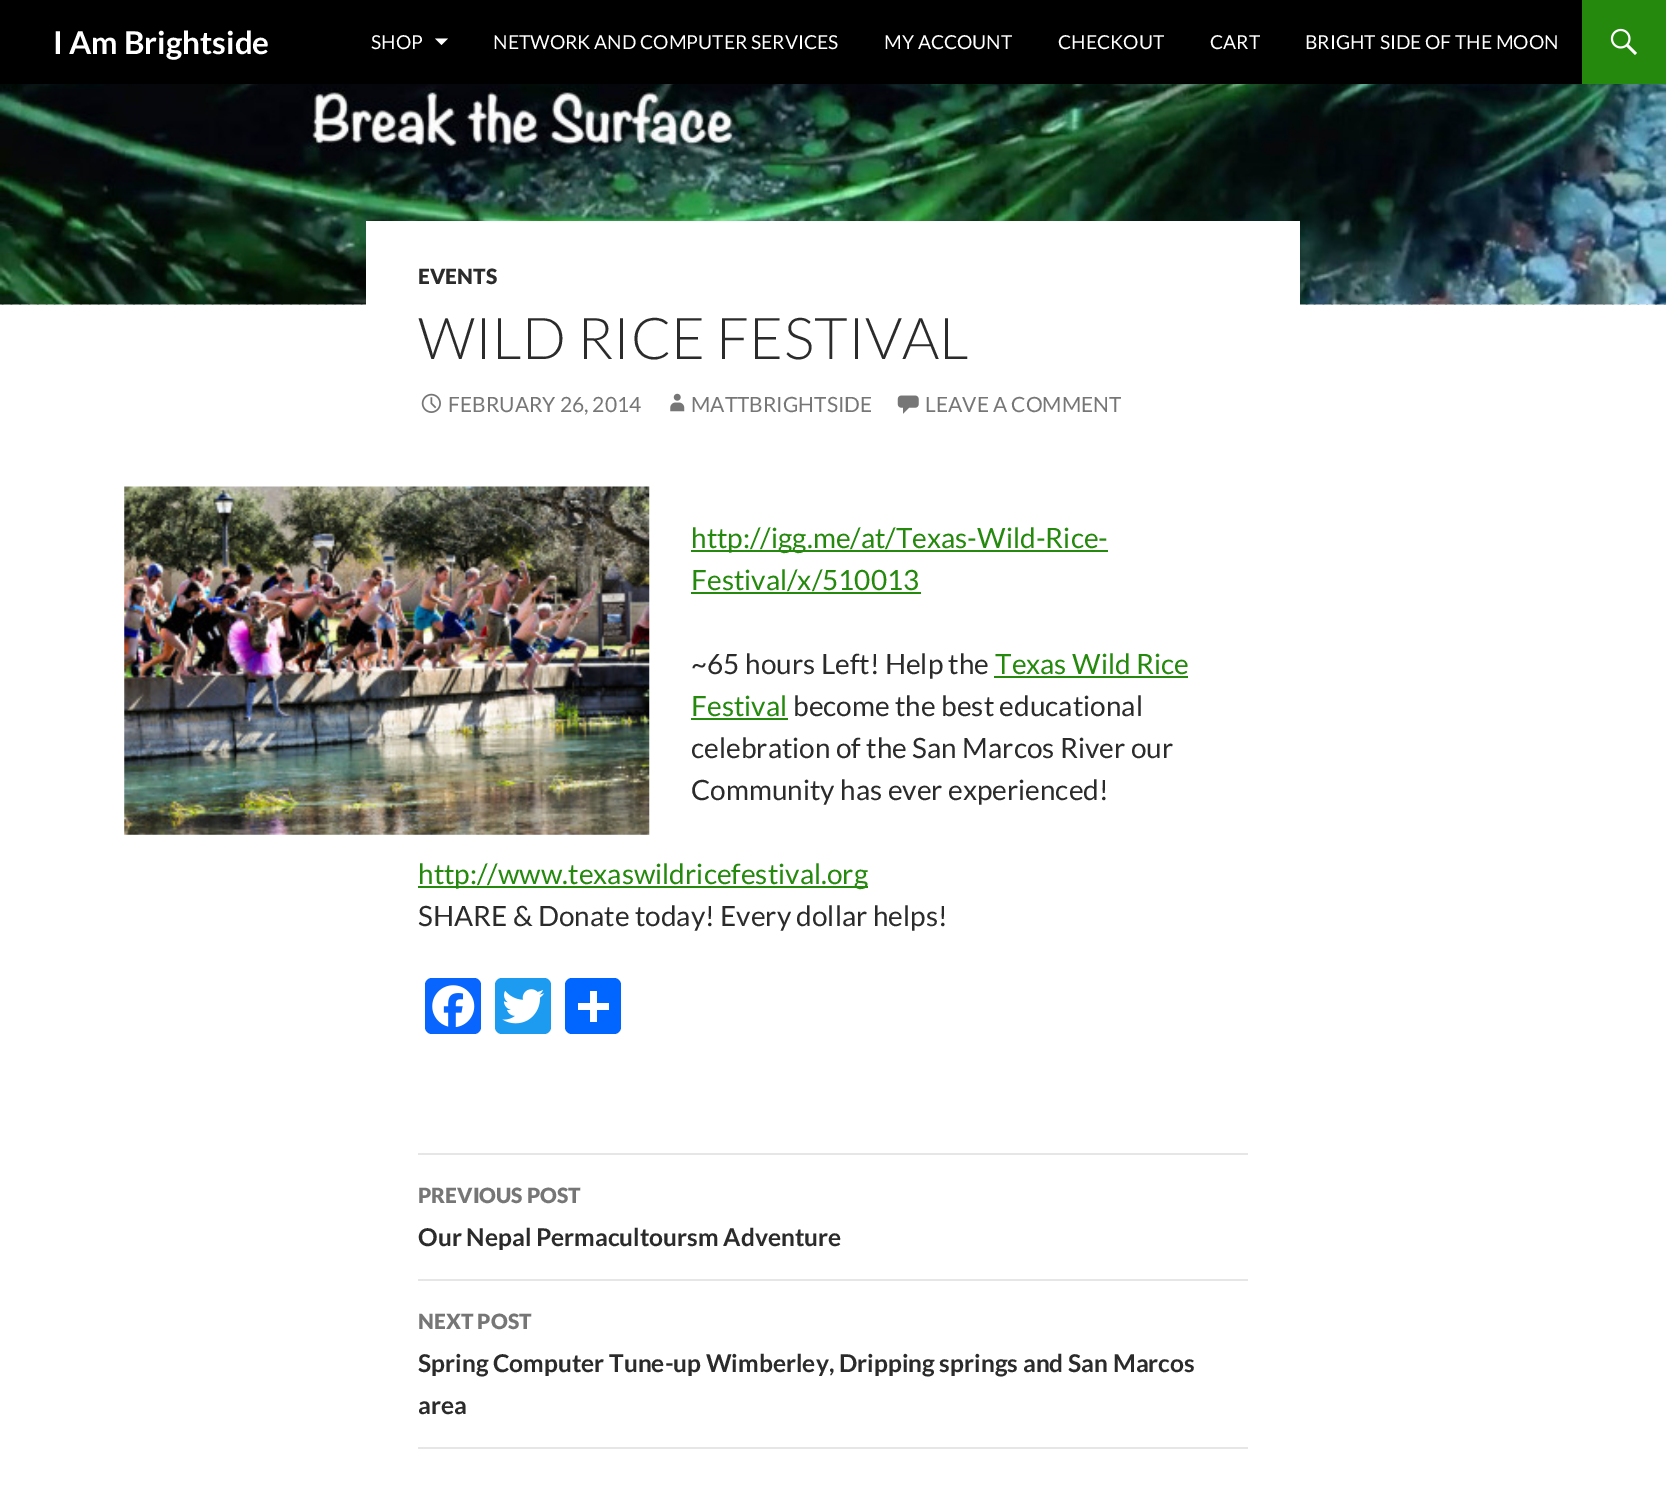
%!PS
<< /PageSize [1666 1494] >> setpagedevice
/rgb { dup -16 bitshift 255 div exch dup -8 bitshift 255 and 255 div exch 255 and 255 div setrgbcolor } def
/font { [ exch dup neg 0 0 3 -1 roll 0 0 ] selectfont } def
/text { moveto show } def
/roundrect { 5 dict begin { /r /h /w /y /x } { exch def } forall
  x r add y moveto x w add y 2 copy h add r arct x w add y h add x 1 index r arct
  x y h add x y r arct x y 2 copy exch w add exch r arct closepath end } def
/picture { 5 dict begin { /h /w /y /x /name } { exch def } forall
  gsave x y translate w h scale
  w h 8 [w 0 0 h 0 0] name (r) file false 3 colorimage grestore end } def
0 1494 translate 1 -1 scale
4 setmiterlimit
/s1 { /Lato-Bold 31.5 font 16#FFFFFF rgb } def
/s2 { /Lato-Regular 19.25 font 16#FFFFFF rgb } def
/s3 { /Lato-Black 21 font 16#2B2B2B rgb } def
/s4 { /Lato-Light 57.75 font 16#2B2B2B rgb } def
/s5 { /Lato-Regular 21 font 16#767676 rgb } def
/s6 { /Lato-Regular 28 font 16#24890D rgb } def
/s7 { /Lato-Regular 28 font 16#2B2B2B rgb } def
/s8 { /Lato-Black 21 font 16#767676 rgb } def
/s9 { /Lato-Bold 24.5 font 16#2B2B2B rgb } def
16#FFFFFF rgb
0 0 1666 1494 rectfill
16#000000 rgb
0 0 1582 84 rectfill
s1
(I Am Brightside) 53 54 text
s2
(SHOP) 371 49 text
435 38.5 moveto 448 38.5 lineto 441.5 45 lineto closepath fill
(NETWORK AND COMPUTER SERVICES) 493 49 text
(MY ACCOUNT) 884 49 text
(CHECKOUT) 1058 49 text
(CART) 1210 49 text
(BRIGHT SIDE OF THE MOON) 1305 49 text
16#24890D rgb
1582 0 84 84 rectfill
(pic1.raw) 1610 28 27 27 picture
16#B2B2B2 rgb
1 304 1665 1 rectfill
(pic2.raw) 0 304 1666 1 picture
(pic3.raw) 0 84 1666 221 picture
16#FFFFFF rgb
366 221 934 84 rectfill
s3
(EVENTS) 418 284 text
s4
(WILD RICE FESTIVAL) 418 359 text
(pic4.raw) 421 393 20 20 picture
s5
(FEBRUARY 26, 2014) 448 412 text
(pic5.raw) 670 393 15 19 picture
(MATTBRIGHTSIDE) 691 412 text
(pic6.raw) 897 395 22 19 picture
(LEAVE A COMMENT) 925 412 text
(pic7.raw) 124 486 526 349 picture
16#24890D rgb
691 550 417 2 rectfill
s6
(http://igg.me/at/Texas-Wild-Rice-) 691 548 text
(Festival/x/510013) 691 590 text
691 592 230 2 rectfill
s7
(~65 hours Left! Help the) 691 674 text
s6
(Texas Wild Rice) 995 674 text
994 676 194 2 rectfill
(Festival) 691 716 text
691 718 97 2 rectfill
s7
(become the best educational) 793 716 text
(celebration of the San Marcos River our) 691 758 text
(Community has ever experienced!) 691 800 text
16#24890D rgb
418 886 450 2 rectfill
(http://www.texaswildricefestival.org) 418 884 text
s7
(SHARE & Donate today! Every dollar helps!) 418 926 text
16#0866FF rgb
425 978 56 56 7 roundrect fill
(pic8.raw) 432 985 43 42 picture
16#1D9BF0 rgb
495 978 56 56 7 roundrect fill
(pic9.raw) 502 989 43 35 picture
16#0166FF rgb
565 978 56 56 7 roundrect fill
16#FFFFFF rgb
590 991 7 31 rectfill
578 1003 31 7 rectfill
16#E6E6E6 rgb
418 1153 830 2 rectfill
418 1279 830 2 rectfill
s8
(PREVIOUS POST) 418 1203 text
s9
(Our Nepal Permacultoursm Adventure) 418 1246 text
16#E6E6E6 rgb
418 1447 830 2 rectfill
s8
(NEXT POST) 418 1329 text
s9
(Spring Computer Tune-up Wimberley, Dripping springs and San Marcos) 418 1372 text
(area) 418 1414 text
showpage
